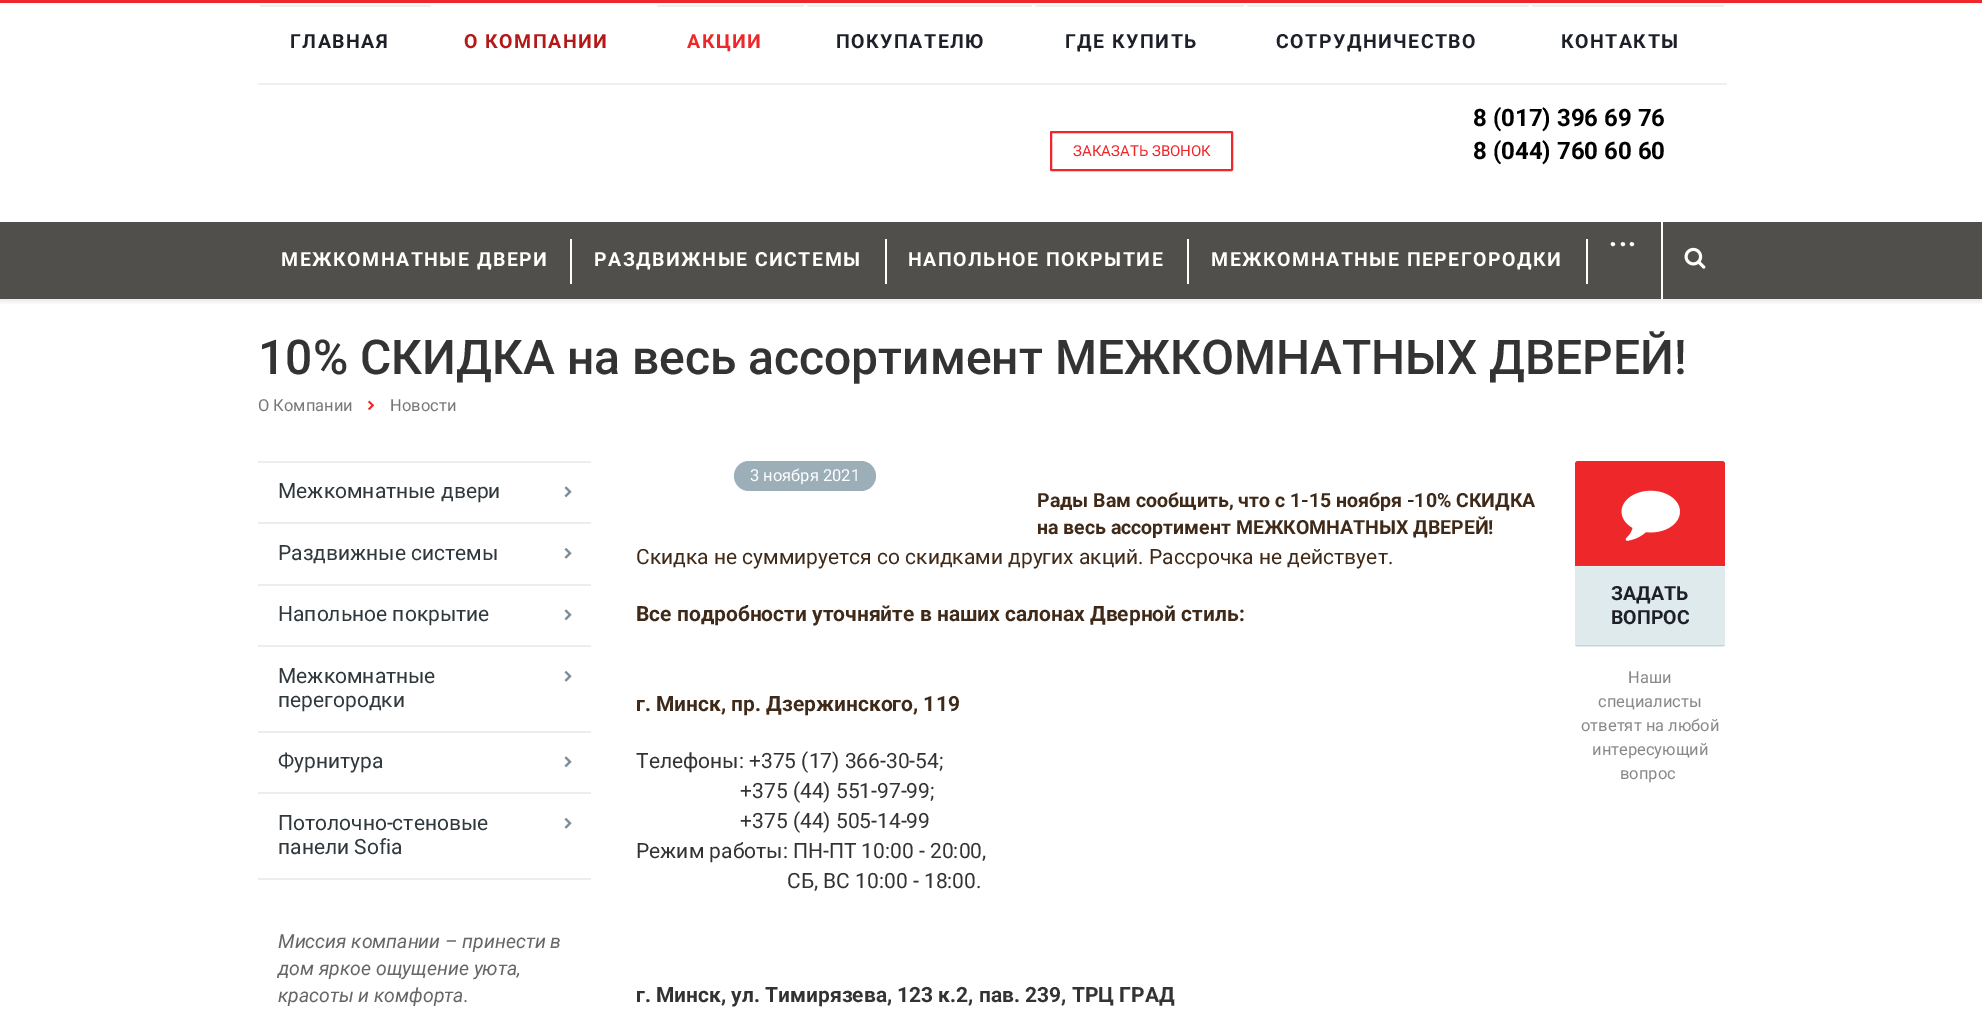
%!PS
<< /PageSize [1982 1032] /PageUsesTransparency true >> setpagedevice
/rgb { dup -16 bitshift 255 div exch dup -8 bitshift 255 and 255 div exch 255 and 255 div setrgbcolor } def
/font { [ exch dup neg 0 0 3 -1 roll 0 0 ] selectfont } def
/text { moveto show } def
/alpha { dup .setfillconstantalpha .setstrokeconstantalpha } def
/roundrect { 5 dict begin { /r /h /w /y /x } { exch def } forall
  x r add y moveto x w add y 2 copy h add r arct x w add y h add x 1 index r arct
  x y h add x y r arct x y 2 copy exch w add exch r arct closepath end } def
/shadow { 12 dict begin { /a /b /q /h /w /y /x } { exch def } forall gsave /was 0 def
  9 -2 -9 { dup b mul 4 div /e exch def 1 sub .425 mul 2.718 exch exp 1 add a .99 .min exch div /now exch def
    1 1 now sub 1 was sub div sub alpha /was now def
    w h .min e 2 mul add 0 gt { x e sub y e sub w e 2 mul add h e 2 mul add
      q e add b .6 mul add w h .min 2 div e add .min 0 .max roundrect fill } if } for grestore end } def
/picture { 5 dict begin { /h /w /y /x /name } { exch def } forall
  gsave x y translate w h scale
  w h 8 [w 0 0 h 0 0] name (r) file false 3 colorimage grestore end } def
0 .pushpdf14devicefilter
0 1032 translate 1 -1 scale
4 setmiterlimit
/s1 { /Roboto-Regular 15 font 16#ED272A rgb } def
/s2 { /Roboto-Bold 24 font 16#000000 rgb } def
/s3 { /Roboto-Medium 48 font 16#333333 rgb } def
/s4 { /Roboto-Regular 16.5 font 16#777777 rgb } def
/s5 { /Roboto-Regular 21 font 16#2F383D rgb } def
/s6 { /Roboto-Italic 19.5 font 16#666666 rgb } def
/s7 { /Roboto-Regular 16.5 font 16#FFFFFF rgb } def
/s8 { /Roboto-Bold 19.5 font 16#3F2A19 rgb } def
/s9 { /Roboto-Regular 21 font 16#3F2A19 rgb } def
/s10 { /Roboto-Bold 21 font 16#3F2A19 rgb } def
/s11 { /Roboto-Regular 21 font 16#333333 rgb } def
/s12 { /Roboto-Bold 21 font 16#333333 rgb } def
/s13 { /Roboto-Bold 19.5 font 16#1D2029 rgb } def
/s14 { /Roboto-Regular 16.5 font 16#888888 rgb } def
16#FFFFFF rgb
0 0 1982 1032 rectfill
gsave
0 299 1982 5 rectclip
16#000000 rgb
0 2 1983 298 0 4 0.14 shadow
grestore
16#ED272A rgb
0 0 1982 3 rectfill
16#F0F0F0 rgb
258 83 1469 2 rectfill
16#EFEFEF rgb
260 5 171 2 rectfill
/Roboto-Bold 19.5 font
16#1D2029 rgb
290 48 moveto 1.5 0 (ГЛАВНАЯ) ashow
16#B41818 rgb
464 48 moveto 1.5 0 (О КОМПАНИИ) ashow
16#EFEFEF rgb
657 5 147 2 rectfill
16#ED272A rgb
687 48 moveto 1.5 0 (АКЦИИ) ashow
16#EFEFEF rgb
807 5 225 2 rectfill
16#1D2029 rgb
836 48 moveto 1.5 0 (ПОКУПАТЕЛЮ) ashow
16#EFEFEF rgb
1035 5 209 2 rectfill
16#1D2029 rgb
1065 48 moveto 1.5 0 (ГДЕ КУПИТЬ) ashow
16#EFEFEF rgb
1247 5 282 2 rectfill
16#1D2029 rgb
1276 48 moveto 1.5 0 (СОТРУДНИЧЕСТВО) ashow
16#EFEFEF rgb
1532 5 192 2 rectfill
16#1D2029 rgb
1561 48 moveto 1.5 0 (КОНТАКТЫ) ashow
16#ED272A rgb
2 setlinewidth
1051 132 181 38 0.5 roundrect stroke
s1
(ЗАКАЗАТЬ ЗВОНОК) 1073 156 text
s2
(8 \(017\) 396 69 76) 1473 126 text
(8 \(044\) 760 60 60) 1473 159 text
16#514F4B rgb
0 222 1982 77 rectfill
16#FFFFFF rgb
1661 222 2 77 rectfill
/Roboto-Bold 28 font
1609 246 moveto 1.5 0 (...) ashow
570 239 2 45 rectfill
/Roboto-Bold 19.5 font
281 266 moveto 1.5 0 (МЕЖКОМНАТНЫЕ ДВЕРИ) ashow
885 239 2 45 rectfill
594 266 moveto 1.5 0 (РАЗДВИЖНЫЕ СИСТЕМЫ) ashow
1187 239 2 45 rectfill
908 266 moveto 1.5 0 (НАПОЛЬНОЕ ПОКРЫТИЕ) ashow
1586 239 2 45 rectfill
1211 266 moveto 1.5 0 (МЕЖКОМНАТНЫЕ ПЕРЕГОРОДКИ) ashow
(pic1.raw) 1684 247 22 22 picture
s3
(10% СКИДКА на весь ассортимент МЕЖКОМНАТНЫХ ДВЕРЕЙ!) 258 374 text
s4
(О Компании) 258 411 text
(pic2.raw) 368 400 7 10 picture
(Новости) 390 411 text
16#EBEEF1 rgb
258 878 333 2 rectfill
258 461 333 2 rectfill
s5
(Межкомнатные двери) 278 498 text
(pic3.raw) 564 486 8 12 picture
16#EBEEF1 rgb
258 522 333 2 rectfill
s5
(Раздвижные системы) 278 560 text
(pic4.raw) 564 548 8 11 picture
16#EBEEF1 rgb
258 584 333 2 rectfill
s5
(Напольное покрытие) 278 621 text
(pic3.raw) 564 609 8 12 picture
16#EBEEF1 rgb
258 645 333 2 rectfill
s5
(Межкомнатные) 278 683 text
(pic4.raw) 564 671 8 11 picture
(перегородки) 278 707 text
16#EBEEF1 rgb
258 731 333 2 rectfill
s5
(Фурнитура) 278 768 text
(pic3.raw) 564 756 8 12 picture
16#EBEEF1 rgb
258 792 333 2 rectfill
s5
(Потолочно-стеновые) 278 830 text
(pic4.raw) 564 818 8 11 picture
(панели Sofia) 278 854 text
s6
(Миссия компании – принести в) 278 948 text
(дом яркое ощущение уюта,) 278 975 text
(красоты и комфорта.) 278 1002 text
16#9CAEB8 rgb
734 461 142 30 15 roundrect fill
s7
(3 ноября 2021) 750 481 text
s8
(Рады Вам сообщить, что с 1-15 ноября -10% СКИДКА) 1037 507 text
(на весь ассортимент МЕЖКОМНАТНЫХ ДВЕРЕЙ!) 1037 534 text
s9
(Скидка не суммируется со скидками других акций. Рассрочка не действует.) 636 564 text
s10
(Все подробности уточняйте в наших салонах Дверной стиль:) 636 621 text
(г. Минск, пр. Дзержинского, 119) 636 711 text
s11
(Телефоны: +375 \(17\) 366-30-54;) 636 768 text
(+375 \(44\) 551-97-99;) 740 798 text
(+375 \(44\) 505-14-99) 740 828 text
(Режим работы: ПН-ПТ 10:00 - 20:00,) 636 858 text
(СБ, ВС 10:00 - 18:00.) 787 888 text
s12
(г. Минск, ул. Тимирязева, 123 к.2, пав. 239, ТРЦ ГРАД) 636 1002 text
16#ED272A rgb
1578 461 moveto 1722 461 lineto 1723.5 461 1725 462.5 1725 464 curveto 1725 566 lineto 1575 566 lineto 1575 464 lineto 1575 462.5 1576.5 461 1578 461 curveto closepath fill
(pic5.raw) 1621 490 59 51 picture
16#DFEAED rgb
1575 566 moveto 1725 566 lineto 1725 644 lineto 1725 645.5 1723.5 647 1722 647 curveto 1578 647 lineto 1576.5 647 1575 645.5 1575 644 curveto closepath fill
16#EAF1F3 rgb
1575 566 150 1 rectfill
16#C8D2D5 rgb
1725 645 moveto 1724 646 lineto 1576 646 lineto 1575 645 lineto closepath fill
s13
(ЗАДАТЬ) 1611 600 text
(ВОПРОС) 1611 624 text
s14
(Наши) 1628 683 text
(специалисты) 1598 707 text
(ответят на любой) 1581 731 text
(интересующий) 1592 755 text
(вопрос) 1620 779 text
.poppdf14devicefilter showpage
